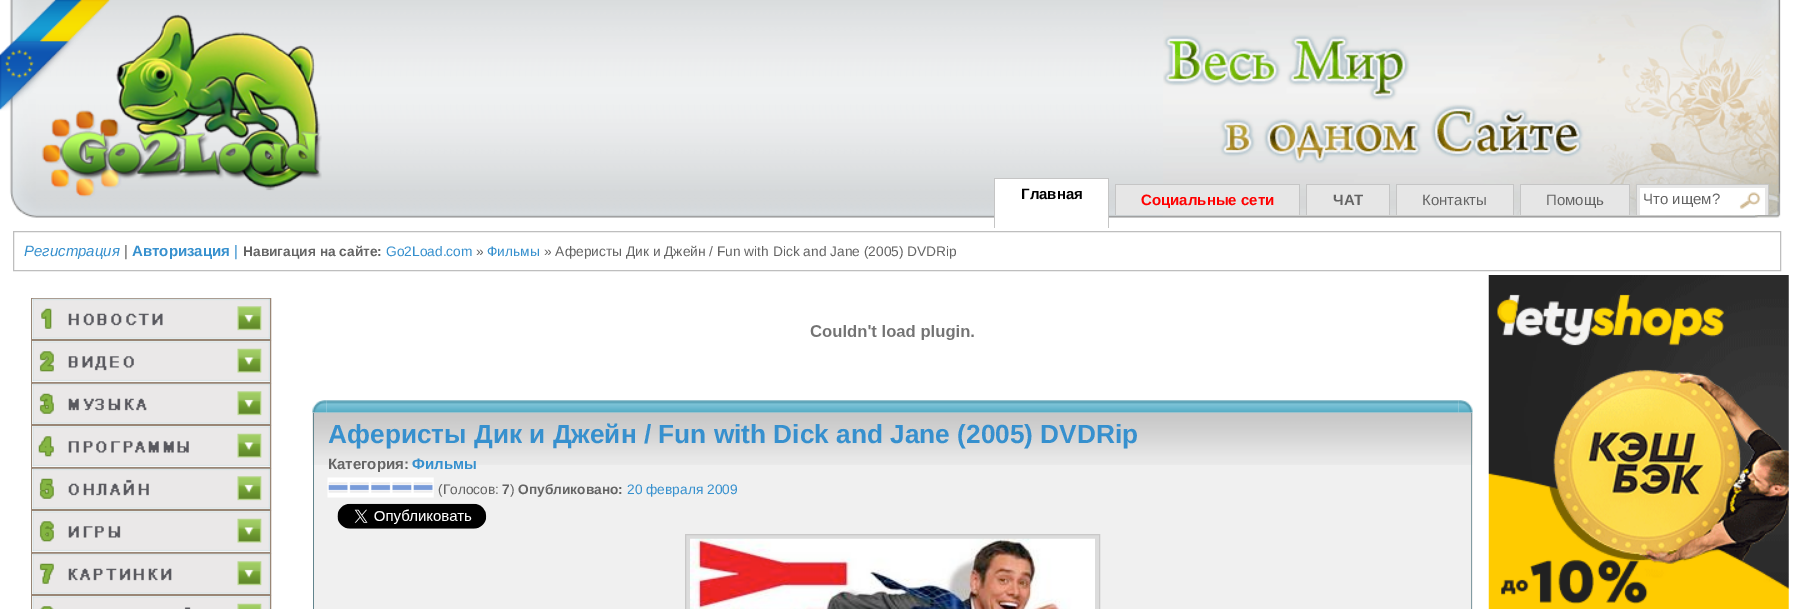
%!PS
<< /PageSize [1793 609] >> setpagedevice
/rgb { dup -16 bitshift 255 div exch dup -8 bitshift 255 and 255 div exch 255 and 255 div setrgbcolor } def
/font { [ exch dup neg 0 0 3 -1 roll 0 0 ] selectfont } def
/text { moveto show } def
/picture { 5 dict begin { /h /w /y /x /name } { exch def } forall
  gsave x y translate w h scale
  w h 8 [w 0 0 h 0 0] name (r) file false 3 colorimage grestore end } def
0 609 translate 1 -1 scale
4 setmiterlimit
/s1 { /LiberationSans-Bold 15 font 16#000000 rgb } def
/s2 { /LiberationSans-Bold 15 font 16#FF0000 rgb } def
/s3 { /LiberationSans-Bold 15 font 16#646464 rgb } def
/s4 { /LiberationSans-Regular 15 font 16#646464 rgb } def
/s5 { /LiberationSans-Italic 15 font 16#3690CE rgb } def
/s6 { /LiberationSans-Bold 15 font 16#3690CE rgb } def
/s7 { /LiberationSans-Regular 15 font 16#3690CE rgb } def
/s8 { /LiberationSans-Bold 13.75 font 16#646464 rgb } def
/s9 { /LiberationSans-Regular 13.75 font 16#3690CE rgb } def
/s10 { /LiberationSans-Regular 13.75 font 16#646464 rgb } def
/s11 { /LiberationSans-Bold 26.25 font 16#3690CE rgb } def
16#FFFFFF rgb
0 0 1793 609 rectfill
(pic1.raw) 36 0 1127 218 picture
(pic2.raw) 1163 0 630 218 picture
(pic3.raw) 0 0 36 218 picture
(pic5.raw) 41 14 281 184 picture
(pic4.raw) 0 0 111 111 picture
995 179 113 39 rectfill
16#C5C5C5 rgb
994 178 115 1 rectfill
1108 178 1 50 rectfill
994 178 1 50 rectfill
s1
(Главная) 1021 199 text
16#E6E6E6 rgb
1116 185 183 30 rectfill
16#C5C5C5 rgb
1115 184 185 1 rectfill
1299 184 1 31 rectfill
1115 184 1 31 rectfill
s2
(Социальные сети) 1141 205 text
16#E6E6E6 rgb
1307 185 82 30 rectfill
16#C5C5C5 rgb
1306 184 84 1 rectfill
1389 184 1 31 rectfill
1306 184 1 31 rectfill
s3
(ЧАТ) 1333 205 text
16#E6E6E6 rgb
1397 185 116 30 rectfill
16#C5C5C5 rgb
1396 184 118 1 rectfill
1513 184 1 31 rectfill
1396 184 1 31 rectfill
s4
(Контакты) 1422 205 text
16#E6E6E6 rgb
1521 185 108 30 rectfill
16#C5C5C5 rgb
1520 184 110 1 rectfill
1629 184 1 31 rectfill
1520 184 1 31 rectfill
s4
(Помощь) 1546 205 text
16#E6E6E6 rgb
1637 185 131 30 rectfill
16#C8C8C8 rgb
1636 184 133 1 rectfill
1768 184 1 31 rectfill
1636 184 1 31 rectfill
16#FFFFFF rgb
1640 188 125 27 rectfill
s4
(Что ищем?) 1643 204 text
(pic6.raw) 1739 192 22 17 picture
16#BEBEBE rgb
13.5 231.5 1767 39 rectstroke
s5
(Регистрация) 24 256 text
s4
(|) 124 256 text
s6
(Авторизация) 132 256 text
s7
(|) 234 256 text
s8
(Навигация на сайте:) 243 256 text
s9
(Go2Load.com) 386 256 text
s10
(») 476 256 text
s9
(Фильмы) 487 256 text
s10
(» Аферисты Дик и Джейн / Fun with Dick and Jane \(2005\) DVDRip) 544 256 text
16#998675 rgb
31.5 298.5 239 41 rectstroke
(pic7.raw) 32 298 238 41 picture
31.5 340.5 239 42 rectstroke
(pic8.raw) 32 341 238 41 picture
31.5 383.5 239 41 rectstroke
(pic9.raw) 32 383 238 41 picture
31.5 425.5 239 42 rectstroke
(pic10.raw) 32 426 238 41 picture
31.5 468.5 239 41 rectstroke
(pic11.raw) 32 468 238 41 picture
31.5 510.5 239 42 rectstroke
(pic12.raw) 32 511 238 41 picture
31.5 553.5 239 41 rectstroke
(pic13.raw) 32 553 238 41 picture
31.5 595.5 239 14 rectstroke
(pic14.raw) 32 596 238 13 picture
(pic15.raw) 810 325 164 15 picture
(pic16.raw) 312 400 15 13 picture
(pic17.raw) 326 400 1133 13 picture
(pic18.raw) 1458 400 15 13 picture
16#F0F0F0 rgb
314 413 1159 196 rectfill
(pic19.raw) 312 412 1161 53 picture
16#829CA3 rgb
1471 413 1 196 rectfill
16#62848D rgb
313 413 1 196 rectfill
s11
(Аферисты Дик и Джейн / Fun with Dick and Jane \(2005\) DVDRip) 328 443 text
s3
(Категория:) 328 469 text
s6
(Фильмы) 412 469 text
(pic20.raw) 327 477 107 21 picture
(pic21.raw) 328 484 105 7 picture
s10
(\(Голосов:) 438 494 text
s8
(7) 502 494 text
s10
(\)) 510 494 text
s8
(Опубликовано:) 518 494 text
s9
(20 февраля 2009) 627 494 text
(pic22.raw) 337 503 150 26 picture
16#DCDCDC rgb
685.5 534.5 moveto 1099.5 534.5 lineto 1099.5 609.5 lineto 685.5 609.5 lineto closepath gsave fill grestore
16#C9C8C8 rgb
stroke
(pic23.raw) 690 538 405 71 picture
(pic24.raw) 1488 275 301 334 picture
showpage
